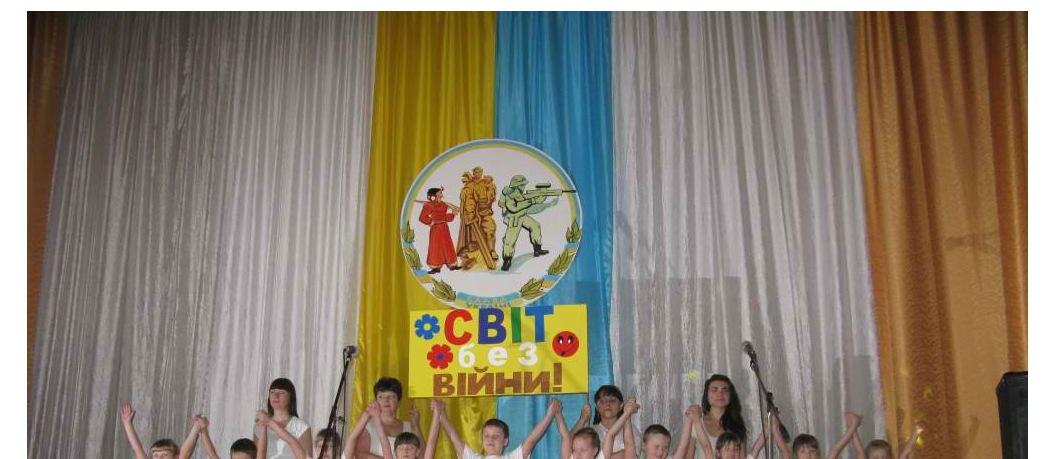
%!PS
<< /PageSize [1054 459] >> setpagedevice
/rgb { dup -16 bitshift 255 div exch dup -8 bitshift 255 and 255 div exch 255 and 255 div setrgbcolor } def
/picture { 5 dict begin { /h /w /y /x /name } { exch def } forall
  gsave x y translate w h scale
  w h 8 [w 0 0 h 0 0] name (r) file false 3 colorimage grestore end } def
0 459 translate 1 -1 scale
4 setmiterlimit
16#FFFFFF rgb
0 0 1054 459 rectfill
(pic1.raw) 27 11 1001 448 picture
showpage
